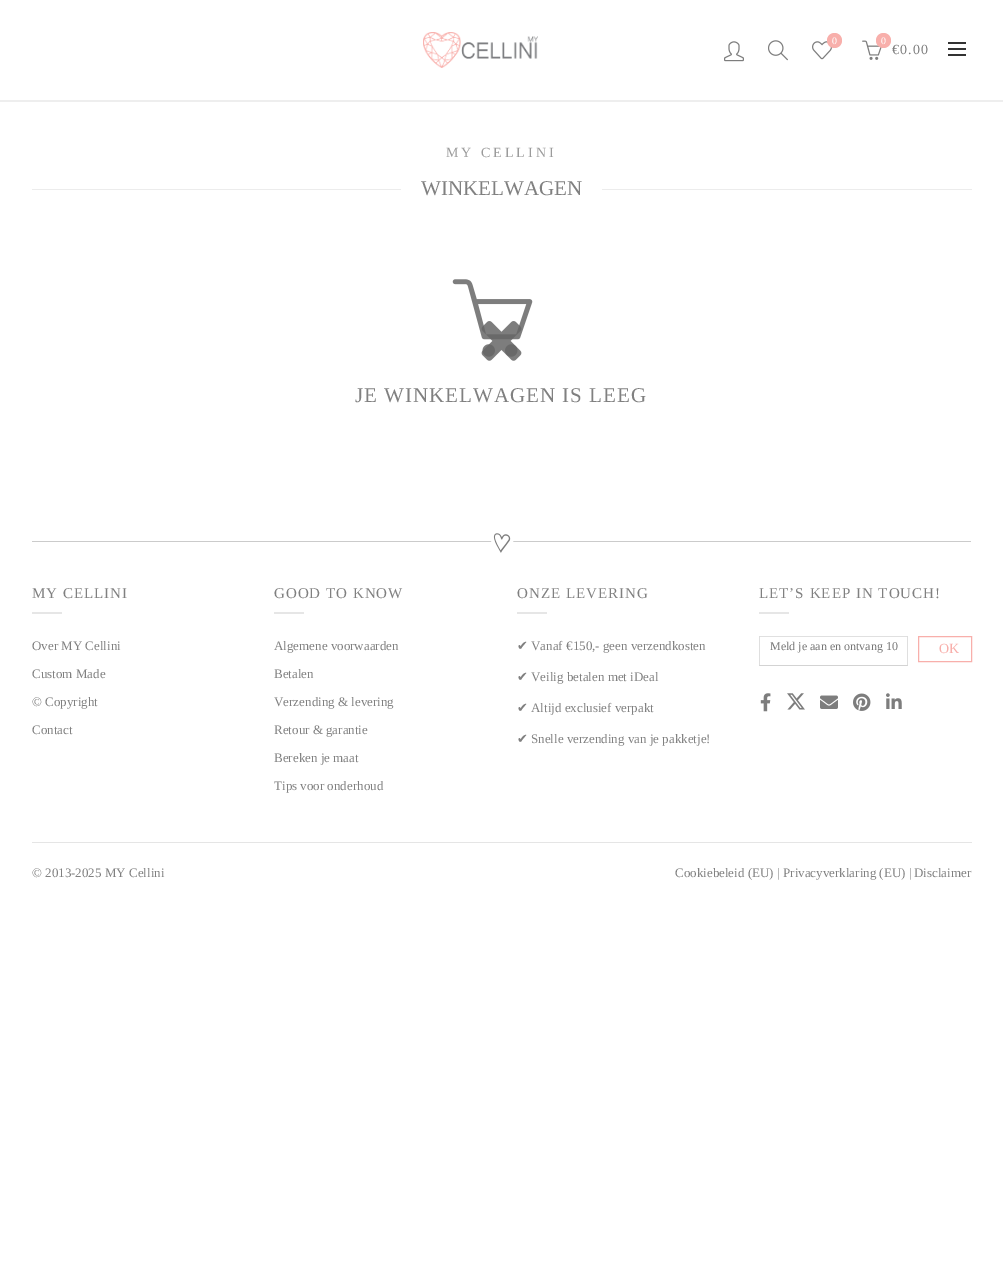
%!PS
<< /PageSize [1003 1283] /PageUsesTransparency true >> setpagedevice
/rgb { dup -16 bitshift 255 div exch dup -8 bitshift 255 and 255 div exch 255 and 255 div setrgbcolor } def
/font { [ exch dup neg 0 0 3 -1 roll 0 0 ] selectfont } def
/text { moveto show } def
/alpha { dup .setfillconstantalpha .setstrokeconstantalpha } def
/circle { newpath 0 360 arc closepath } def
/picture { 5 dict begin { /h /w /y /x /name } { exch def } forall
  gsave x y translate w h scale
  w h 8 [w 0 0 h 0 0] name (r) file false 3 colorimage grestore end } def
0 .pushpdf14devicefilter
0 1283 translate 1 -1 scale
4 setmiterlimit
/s1 { /LiberationSerif-Regular 10 font 16#FFFFFF rgb } def
/s2 { /LiberationSerif-Regular 21 font 16#808080 rgb } def
/s3 { /LiberationSerif-Regular 13 font 16#808080 rgb } def
/s4 { /DejaVuSans-Regular 13 font 16#808080 rgb } def
/s5 { /LiberationSerif-Regular 12 font 16#757575 rgb } def
/s6 { /LiberationSerif-Regular 14 font 16#F8AFAB rgb } def
16#FFFFFF rgb
0 0 1003 1283 rectfill
(pic1.raw) 423 32 115 36 picture
(pic2.raw) 724 41 20 21 picture
(pic3.raw) 768 40 20 21 picture
(pic4.raw) 812 41 20 19 picture
16#F8AFAB rgb
834.5 40.5 7.5 circle fill
s1
(0) 832 44 text
(pic5.raw) 862 40 20 20 picture
16#F8AFAB rgb
883.5 40.5 7.5 circle fill
s1
(0) 881 44 text
/LiberationSerif-Regular 14 font
16#808080 rgb
892 54 moveto 1 0 (€0.00) ashow
16#333333 rgb
948 48 18 2 rectfill
948 42 18 2 rectfill
948 54 18 2 rectfill
16#EEEEEE rgb
0 100 1003 2 rectfill
16#9B9B9B rgb
446 157 moveto 3 0 (MY CELLINI) ashow
16#ECECEC rgb
32 189 369 1 rectfill
s2
(WINKELWAGEN) 421 195 text
16#ECECEC rgb
602 189 370 1 rectfill
(pic6.raw) 452 279 81 78 picture
(pic7.raw) 481 321 41 40 picture
16#808080 rgb
355 402 moveto 1 0 (JE WINKELWAGEN IS LEEG) ashow
(pic8.raw) 32 533 939 20 picture
/LiberationSerif-Regular 15 font
32 598 moveto 1 0 (MY CELLINI) ashow
16#E6E6E6 rgb
32 612 30 2 rectfill
s3
(Over MY Cellini) 32 650 text
(Custom Made) 32 678 text
(© Copyright) 32 706 text
(Contact) 32 734 text
/LiberationSerif-Regular 15 font
274 598 moveto 1 0 (GOOD TO KNOW) ashow
16#E6E6E6 rgb
274 612 30 2 rectfill
s3
(Algemene voorwaarden) 274 650 text
(Betalen) 274 678 text
(Verzending & levering) 274 706 text
(Retour & garantie) 274 734 text
(Bereken je maat) 274 762 text
(Tips voor onderhoud) 274 790 text
/LiberationSerif-Regular 15 font
517 598 moveto 1 0 (ONZE LEVERING) ashow
16#E6E6E6 rgb
517 612 30 2 rectfill
s4
(✔) 517 650 text
s3
(Vanaf €150,- geen verzendkosten) 531 650 text
s4
(✔) 517 681 text
s3
(Veilig betalen met iDeal) 531 681 text
s4
(✔) 517 712 text
s3
(Altijd exclusief verpakt) 531 712 text
s4
(✔) 517 743 text
s3
(Snelle verzending van je pakketje!) 531 743 text
/LiberationSerif-Regular 15 font
759 598 moveto 1 0 (LET’S KEEP IN TOUCH!) ashow
16#E6E6E6 rgb
759 612 30 2 rectfill
16#E0E0E0 rgb
759 636 moveto 908 636 lineto 907 637 lineto 760 637 lineto closepath fill
0.25 alpha
16#818181 rgb
908 636 moveto 908 666 lineto 907 665 lineto 907 637 lineto closepath fill
0.35 alpha
908 666 moveto 759 666 lineto 760 665 lineto 907 665 lineto closepath fill
0.25 alpha
759 666 moveto 759 636 lineto 760 637 lineto 760 665 lineto closepath fill
1 alpha
s5
(Meld je aan en ontvang 10) 770 650 text
16#F8AFAB rgb
918.5 636.5 53 25 rectstroke
s6
(OK) 939 653 text
(pic9.raw) 760 693 11 19 picture
(pic10.raw) 787 693 18 17 picture
(pic11.raw) 820 695 18 14 picture
(pic12.raw) 853 693 18 18 picture
(pic13.raw) 886 693 16 16 picture
16#E5E5E5 rgb
32 842 940 1 rectfill
s3
(© 2013-2025 MY Cellini) 32 877 text
(Cookiebeleid \(EU\)) 675 877 text
(|) 777 877 text
(Privacyverklaring \(EU\)) 783 877 text
(|) 909 877 text
(Disclaimer) 914 877 text
.poppdf14devicefilter showpage
